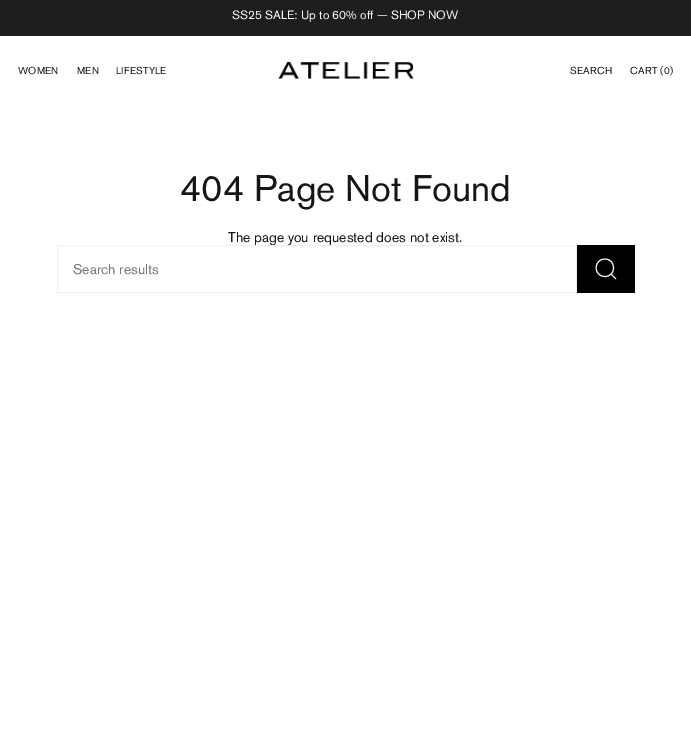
%!PS
<< /PageSize [691 744] >> setpagedevice
/rgb { dup -16 bitshift 255 div exch dup -8 bitshift 255 and 255 div exch 255 and 255 div setrgbcolor } def
/font { [ exch dup neg 0 0 3 -1 roll 0 0 ] selectfont } def
/text { moveto show } def
/picture { 5 dict begin { /h /w /y /x /name } { exch def } forall
  gsave x y translate w h scale
  w h 8 [w 0 0 h 0 0] name (r) file false 3 colorimage grestore end } def
0 744 translate 1 -1 scale
4 setmiterlimit
/s1 { /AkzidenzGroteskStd-Regular 12 font 16#F7F7F7 rgb } def
/s2 { /AkzidenzGroteskStd-Regular 36.75 font 16#161616 rgb } def
/s3 { /AkzidenzGroteskStd-Regular 14 font 16#161616 rgb } def
/s4 { /AkzidenzGroteskStd-Regular 14 font 16#757575 rgb } def
16#FFFFFF rgb
0 0 691 744 rectfill
16#1E1E1E rgb
0 0 691 36 rectfill
s1
(SS25 SALE: Up to 60% off — SHOP NOW) 232 19 text
/AkzidenzGroteskStd-Regular 10 font
16#161616 rgb
18 74 moveto 0.25 0 (WOMEN) ashow
77 74 moveto 0.25 0 (MEN) ashow
116 74 moveto 0.25 0 (LIFESTYLE) ashow
(pic1.raw) 278 61 136 18 picture
570 74 moveto 0.25 0 (SEARCH) ashow
630 74 moveto 0.25 0 (CART \(0\)) ashow
s2
(404 Page Not Found) 180 201 text
s3
(The page you requested does not exist.) 228 242 text
16#F0F0F0 rgb
57.5 245.5 519 47 rectstroke
s4
(Search results) 73 274 text
16#000000 rgb
577 245 58 48 rectfill
16#F7F7F7 rgb
605 259 moveto 616.5 259 616.5 277 604.5 276.5 curveto 593 276 593.5 259 605 259 curveto closepath 611 274 moveto 616 279 lineto stroke
showpage
